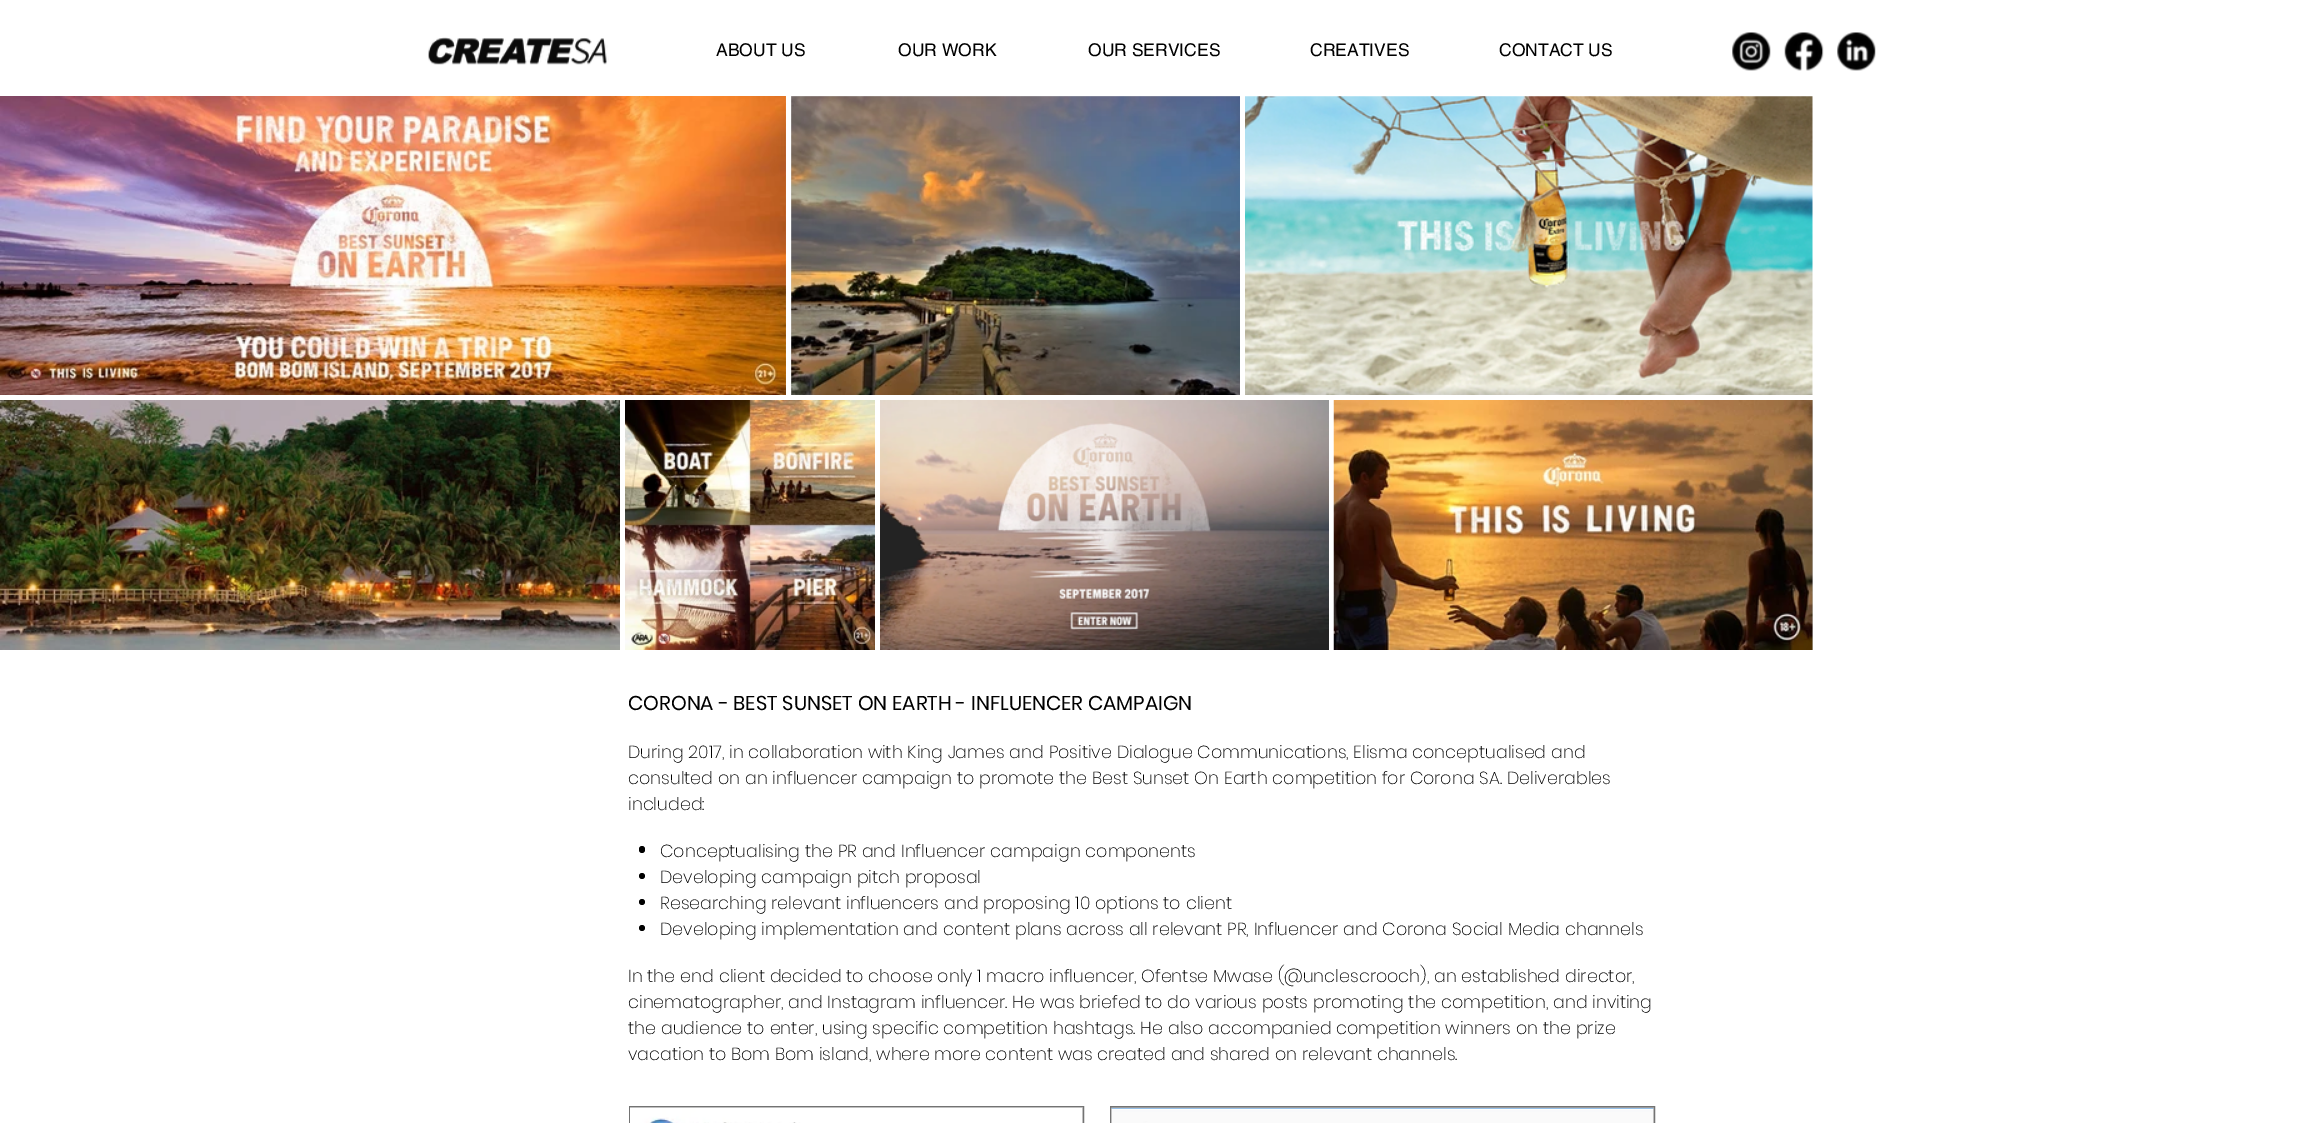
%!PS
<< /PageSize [2298 1123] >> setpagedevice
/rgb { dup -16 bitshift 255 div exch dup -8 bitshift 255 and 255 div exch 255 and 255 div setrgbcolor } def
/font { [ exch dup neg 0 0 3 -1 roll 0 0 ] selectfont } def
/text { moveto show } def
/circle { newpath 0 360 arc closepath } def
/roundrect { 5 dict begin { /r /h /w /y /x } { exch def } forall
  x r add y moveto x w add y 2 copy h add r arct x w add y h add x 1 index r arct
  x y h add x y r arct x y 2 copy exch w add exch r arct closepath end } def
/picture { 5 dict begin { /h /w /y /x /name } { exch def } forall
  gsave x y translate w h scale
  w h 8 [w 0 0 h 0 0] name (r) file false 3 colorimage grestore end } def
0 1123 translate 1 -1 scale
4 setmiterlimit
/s1 { /helvetica-Regular 17.5 font 16#000000 rgb } def
/s2 { /Poppins-Regular 20 font 16#000000 rgb } def
/s3 { /Poppins-ExtraLight 17.5 font 16#000000 rgb } def
16#FFFFFF rgb
0 0 2298 1123 rectfill
(pic1.raw) 428 37 181 28 picture
s1
(ABOUT US) 716 56 text
(OUR WORK) 898 56 text
(OUR SERVICES) 1088 56 text
(CREATIVES) 1310 56 text
(CONTACT US) 1499 56 text
(pic2.raw) 1732 32 39 39 picture
(pic3.raw) 1784 32 40 39 picture
(pic4.raw) 1837 32 39 39 picture
(pic5.raw) 0 96 786 299 picture
16#CCCCCC rgb
791 96 449 299 rectfill
(pic6.raw) 791 96 449 299 picture
(pic7.raw) 1245 96 568 299 picture
(pic8.raw) 0 400 620 250 picture
(pic9.raw) 625 400 250 250 picture
(pic10.raw) 880 400 449 250 picture
1812 400 1 250 rectfill
(pic11.raw) 1333 400 480 250 picture
s2
(CORONA - BEST SUNSET ON EARTH - INFLUENCER CAMPAIGN) 628 710 text
s3
(During 2017, in collaboration with King James and Positive Dialogue Communications, Elisma conceptualised and) 628 758 text
(consulted on an influencer campaign to promote the Best Sunset On Earth competition for Corona SA. Deliverables) 628 784 text
(included:) 628 810 text
639 846 6 7 3 roundrect fill
(Conceptualising the PR and Influencer campaign components) 660 857 text
642 876 3 circle fill
(Developing campaign pitch proposal) 660 883 text
642 902 3 circle fill
(Researching relevant influencers and proposing 10 options to client) 660 909 text
642 928 3 circle fill
(Developing implementation and content plans across all relevant PR, Influencer and Corona Social Media channels) 660 935 text
(In the end client decided to choose only 1 macro influencer, Ofentse Mwase \(@unclescrooch\), an established director,) 628 982 text
(cinematographer, and Instagram influencer. He was briefed to do various posts promoting the competition, and inviting) 628 1008 text
(the audience to enter, using specific competition hashtags. He also accompanied competition winners on the prize) 628 1034 text
(vacation to Bom Bom island, where more content was created and shared on relevant channels.) 628 1060 text
16#ABABAB rgb
629.5 1106.5 moveto 1083.5 1106.5 lineto 1083.5 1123.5 lineto 629.5 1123.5 lineto closepath gsave fill grestore
16#737373 rgb
stroke
(pic12.raw) 630 1107 453 16 picture
16#ABABAB rgb
1110.5 1106.5 moveto 1654.5 1106.5 lineto 1654.5 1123.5 lineto 1110.5 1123.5 lineto closepath gsave fill grestore
16#737373 rgb
stroke
(pic13.raw) 1111 1108 543 15 picture
showpage
